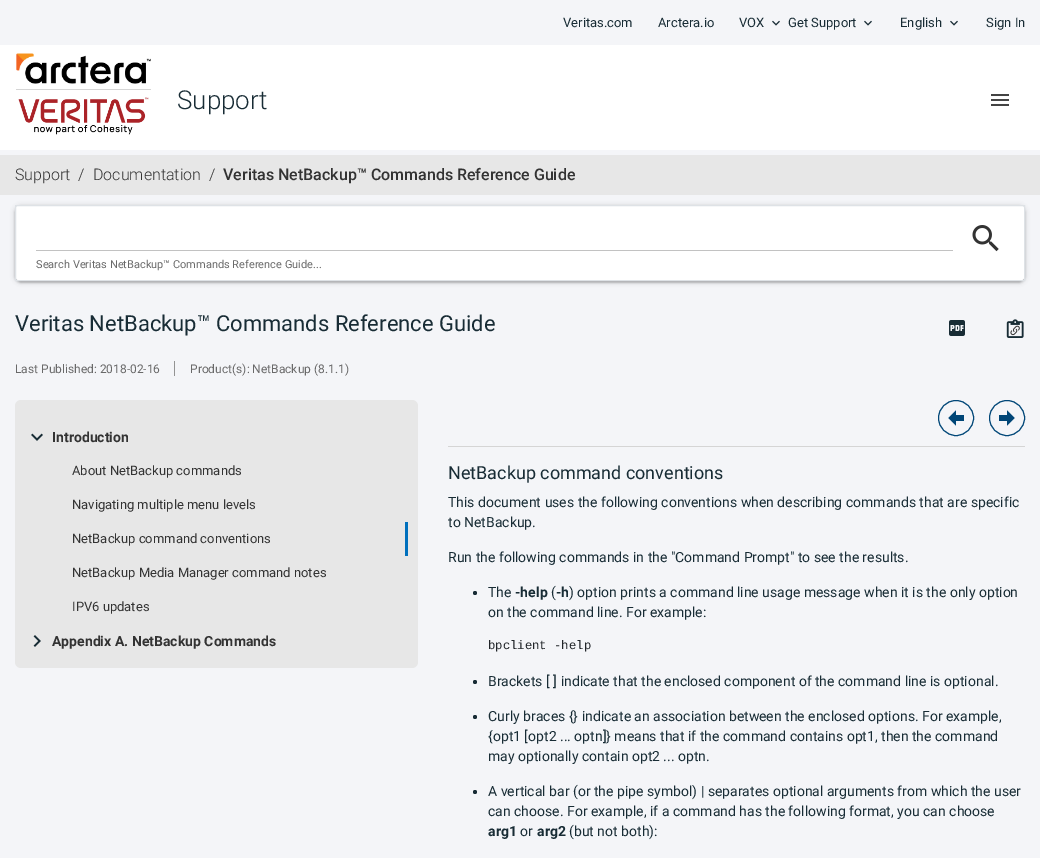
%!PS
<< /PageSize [1040 858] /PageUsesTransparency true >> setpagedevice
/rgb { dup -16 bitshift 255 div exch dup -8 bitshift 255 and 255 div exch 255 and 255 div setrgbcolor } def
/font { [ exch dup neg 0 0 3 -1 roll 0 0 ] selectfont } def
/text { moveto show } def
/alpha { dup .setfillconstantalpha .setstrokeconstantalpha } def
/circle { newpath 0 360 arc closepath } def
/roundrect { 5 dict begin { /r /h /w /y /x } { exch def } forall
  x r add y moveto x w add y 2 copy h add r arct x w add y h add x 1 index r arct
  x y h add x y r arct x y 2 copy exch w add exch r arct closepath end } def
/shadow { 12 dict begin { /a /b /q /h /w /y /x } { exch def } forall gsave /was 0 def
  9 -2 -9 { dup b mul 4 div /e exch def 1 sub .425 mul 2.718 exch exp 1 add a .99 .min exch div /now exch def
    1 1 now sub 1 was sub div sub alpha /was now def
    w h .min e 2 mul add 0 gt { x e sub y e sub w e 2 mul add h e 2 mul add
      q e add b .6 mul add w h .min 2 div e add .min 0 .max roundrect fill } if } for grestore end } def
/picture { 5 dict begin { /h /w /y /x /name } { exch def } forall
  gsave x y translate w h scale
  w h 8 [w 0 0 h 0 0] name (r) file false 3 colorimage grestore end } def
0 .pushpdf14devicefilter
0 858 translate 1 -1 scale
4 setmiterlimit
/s1 { /Roboto-Regular 13 font 16#182C35 rgb } def
/s2 { /Roboto-Light 26 font 16#182C35 rgb } def
/s3 { /Roboto-Light 16 font 16#333333 rgb } def
/s4 { /Roboto-Medium 16 font 16#333333 rgb } def
/s5 { /Roboto-Regular 11 font 16#696969 rgb } def
/s6 { /Roboto-Regular 22 font 16#182C35 rgb } def
/s7 { /Roboto-Regular 12 font 16#696969 rgb } def
/s8 { /Roboto-Bold 14 font 16#333333 rgb } def
/s9 { /Roboto-Regular 13 font 16#333333 rgb } def
/s10 { /Roboto-Regular 18 font 16#182C35 rgb } def
/s11 { /Roboto-Regular 14 font 16#182C35 rgb } def
/s12 { /Roboto-Bold 14 font 16#182C35 rgb } def
/s13 { /LiberationMono-Regular 12.25 font 16#212529 rgb } def
16#F4F5F8 rgb
0 0 1040 858 rectfill
s1
(Veritas.com) 563 27 text
(Arctera.io) 658 27 text
(VOX) 739 27 text
(pic1.raw) 772 20 8 6 picture
(Get Support) 788 27 text
(pic1.raw) 864 20 8 6 picture
(English) 900 27 text
(pic1.raw) 950 20 8 6 picture
(Sign In) 986 27 text
16#FFFFFF rgb
0 45 1040 105 rectfill
(pic2.raw) 16 53 135 31 picture
16#D5D5D5 rgb
16 89 135 1 rectfill
(pic3.raw) 18 97 131 38 picture
s2
(Support) 177 109 text
(pic4.raw) 991 94 18 12 picture
16#E7E7E7 rgb
0 155 1040 40 rectfill
s3
(Support) 15 180 text
(/) 78 180 text
(Documentation) 93 180 text
(/) 209 180 text
s4
(Veritas NetBackup™ Commands Reference Guide) 223 180 text
16#000000 rgb
17 210 1006 72 4 0.5 0.12 shadow
15 207 1010 76 6 1 0.14 shadow
15 206 1010 76 6 2.5 0.2 shadow
16#FFFFFF rgb
15 205 1010 76 6 roundrect fill
16#DEE2E6 rgb
15.5 205.5 1009 75 rectstroke
16#C2C2C2 rgb
36 250 917 1 rectfill
(pic5.raw) 972 225 27 27 picture
s5
(Search Veritas NetBackup™ Commands Reference Guide...) 36 268 text
s6
(Veritas NetBackup™ Commands Reference Guide) 15 331 text
(pic6.raw) 949 320 16 16 picture
(pic7.raw) 1006 319 18 19 picture
(pic8.raw) 1010 325 10 11 picture
s7
(Last Published: 2018-02-16) 15 373 text
16#939393 rgb
174 361 1 15 rectfill
s7
(Product\(s\): NetBackup \(8.1.1\)) 190 373 text
16#E7E7E7 rgb
15 400 403 268 6 roundrect fill
(pic9.raw) 31 433 12 8 picture
s8
(Introduction) 52 442 text
s9
(About NetBackup commands) 72 475 text
(Navigating multiple menu levels) 72 509 text
16#0070BD rgb
405 522 3 34 rectfill
s9
(NetBackup command conventions) 72 543 text
(NetBackup Media Manager command notes) 72 577 text
(IPV6 updates) 72 611 text
(pic10.raw) 33 635 8 12 picture
s8
(Appendix A. NetBackup Commands) 52 646 text
16#D5D5D5 rgb
448 446 577 1 rectfill
16#004677 rgb
956 418 17.5 circle stroke
(pic11.raw) 948 410 16 16 picture
1007 418 17.5 circle stroke
(pic12.raw) 999 410 16 16 picture
s10
(NetBackup command conventions) 448 479 text
s11
(This document uses the following conventions when describing commands that are specific) 448 507 text
(to NetBackup.) 448 527 text
(Run the following commands in the "Command Prompt" to see the results.) 448 562 text
475 593 2 circle fill
(The) 488 597 text
s12
(-help) 515 597 text
s11
(\() 551 597 text
s12
(-h) 556 597 text
s11
(\) option prints a command line usage message when it is the only option) 569 597 text
(on the command line. For example:) 488 617 text
s13
(bpclient -help) 488 649 text
16#182C35 rgb
475 682 2 circle fill
s11
(Brackets [ ] indicate that the enclosed component of the command line is optional.) 488 686 text
475 717 2 circle fill
(Curly braces {} indicate an association between the enclosed options. For example,) 488 721 text
({opt1 [opt2 ... optn]} means that if the command contains opt1, then the command) 488 741 text
(may optionally contain opt2 ... optn.) 488 761 text
475 792 2 circle fill
(A vertical bar \(or the pipe symbol\) | separates optional arguments from which the user) 488 796 text
(can choose. For example, if a command has the following format, you can choose) 488 816 text
s12
(arg1) 488 836 text
s11
(or) 520 836 text
s12
(arg2) 537 836 text
s11
(\(but not both\):) 569 836 text
.poppdf14devicefilter showpage
